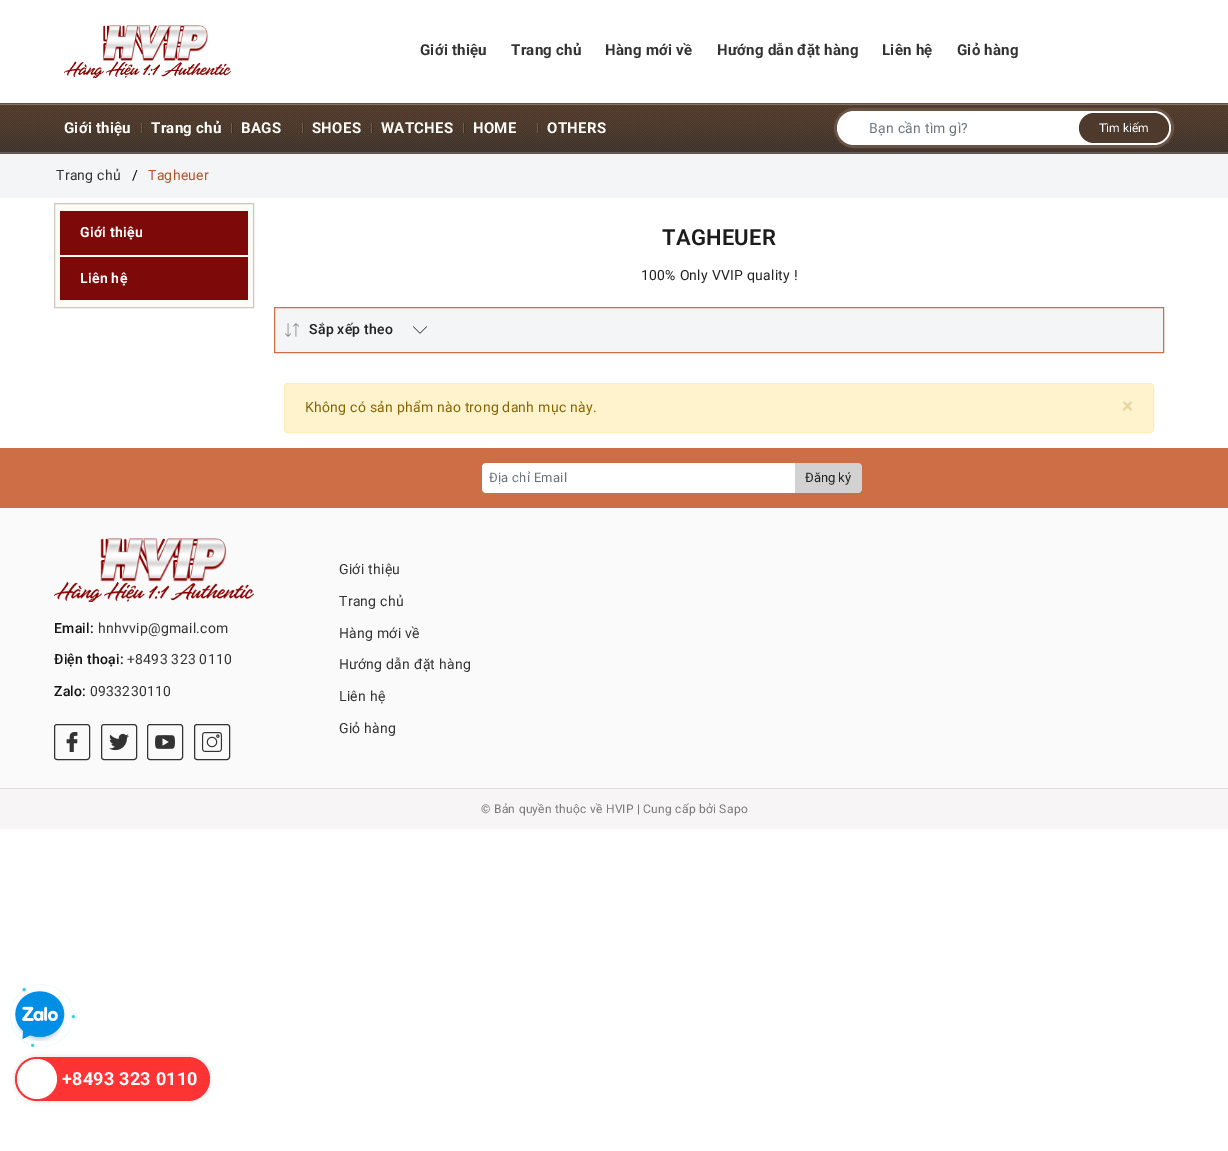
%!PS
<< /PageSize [1228 1151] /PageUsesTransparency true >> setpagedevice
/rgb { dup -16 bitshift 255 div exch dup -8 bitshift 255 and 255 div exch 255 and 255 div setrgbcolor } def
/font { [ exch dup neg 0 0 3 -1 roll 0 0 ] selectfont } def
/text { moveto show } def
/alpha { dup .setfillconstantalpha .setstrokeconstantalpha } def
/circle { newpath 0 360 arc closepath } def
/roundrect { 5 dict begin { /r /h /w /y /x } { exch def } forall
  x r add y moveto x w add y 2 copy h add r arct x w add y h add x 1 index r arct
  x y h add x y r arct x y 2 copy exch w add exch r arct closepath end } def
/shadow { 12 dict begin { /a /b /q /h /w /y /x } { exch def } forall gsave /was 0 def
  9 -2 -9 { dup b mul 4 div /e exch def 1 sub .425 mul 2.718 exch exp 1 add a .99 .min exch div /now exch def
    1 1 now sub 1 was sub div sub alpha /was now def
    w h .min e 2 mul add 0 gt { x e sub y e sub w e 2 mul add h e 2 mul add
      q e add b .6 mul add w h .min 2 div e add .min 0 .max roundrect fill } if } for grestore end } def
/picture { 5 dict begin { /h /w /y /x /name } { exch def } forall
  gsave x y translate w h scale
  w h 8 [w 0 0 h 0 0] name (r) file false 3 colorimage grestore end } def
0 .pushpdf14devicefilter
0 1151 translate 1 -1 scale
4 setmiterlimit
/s1 { /Roboto-Regular 12 font 16#FFFFFF rgb } def
/s2 { /Roboto-Regular 13 font 16#222222 rgb } def
16#FFFFFF rgb
0 0 1228 1151 rectfill
(pic1.raw) 64 25 167 53 picture
/Roboto-Bold 15 font
16#333333 rgb
420 55 moveto 0.25 0 (Giới thiệu) ashow
511 55 moveto 0.25 0 (Trang chủ) ashow
605 55 moveto 0.25 0 (Hàng mới về) ashow
717 55 moveto 0.25 0 (Hướng dẫn đặt hàng) ashow
882 55 moveto 0.25 0 (Liên hệ) ashow
957 55 moveto 0.25 0 (Giỏ hàng) ashow
(pic2.raw) 0 103 1228 51 picture
16#FEFCF7 rgb
64 133 moveto 0.25 0 (Giới thiệu) ashow
(pic3.raw) 141 123 2 10 picture
151 133 moveto 0.25 0 (Trang chủ) ashow
(pic3.raw) 231 123 2 10 picture
241 133 moveto 0.25 0 (BAGS) ashow
(pic3.raw) 302 123 2 10 picture
312 133 moveto 0.25 0 (SHOES) ashow
(pic3.raw) 371 123 2 10 picture
381 133 moveto 0.25 0 (WATCHES) ashow
(pic3.raw) 463 123 2 10 picture
473 133 moveto 0.25 0 (HOME) ashow
(pic3.raw) 537 123 2 10 picture
547 133 moveto 0.25 0 (OTHERS) ashow
16#6A5345 rgb
3 setlinewidth
835.5 109.5 337 37 18.5 roundrect stroke
16#FFFFFF rgb
837 111 334 34 17 roundrect fill
/Roboto-Regular 14 font
16#6C757D rgb
869 133 moveto 0.25 0 (Bạn cần tìm gì?) ashow
16#4D3A2D rgb
1079 113 90 30 15 roundrect fill
s1
(Tìm kiếm) 1099 132 text
16#F3F5F7 rgb
0 154 1228 44 rectfill
/Roboto-Regular 14 font
16#333333 rgb
56 180 moveto 0.25 0 (Trang chủ) ashow
16#000000 rgb
132 180 moveto 0.25 0 (/) ashow
16#B2562F rgb
148 180 moveto 0.25 0 (Tagheuer) ashow
16#FDFBF5 rgb
54.5 203.5 moveto 253.5 203.5 lineto 253.5 307.5 lineto 54.5 307.5 lineto closepath gsave fill grestore
16#CEC7C0 rgb
1 setlinewidth
stroke
16#7D0909 rgb
60 211 188 44 rectfill
/Roboto-Bold 14 font
16#FFFFFF rgb
80 237 moveto 0.25 0 (Giới thiệu) ashow
16#7D0909 rgb
60 257 188 43 rectfill
16#FFFFFF rgb
80 283 moveto 0.25 0 (Liên hệ) ashow
/Roboto-SemiBold 22 font
16#1C1C1C rgb
662 245 moveto 0.25 0 (TAGHEUER) ashow
/Roboto-Regular 14 font
16#222222 rgb
641 280 moveto 0.25 0 (100% Only VVIP quality !) ashow
16#F3F5F7 rgb
274.5 307.5 moveto 1163.5 307.5 lineto 1163.5 352.5 lineto 274.5 352.5 lineto closepath gsave fill grestore
16#CE6E46 rgb
stroke
(pic4.raw) 285 323 14 14 picture
/Roboto-Medium 14 font
16#222222 rgb
309 334 moveto 0.25 0 (Sắp xếp theo) ashow
(pic5.raw) 413 326 14 8 picture
16#FFF3CD rgb
284.5 383.5 869 49 3.5 roundrect gsave fill grestore
16#FFEEBA rgb
stroke
/Roboto-Regular 14 font
16#856404 rgb
305 412 moveto 0.25 0 (Không có sản phẩm nào trong danh mục này.) ashow
/Roboto-Bold 21 font
16#E7D6A5 rgb
1122 413 moveto 0.25 0 (×) ashow
16#CE6E46 rgb
0 448 1228 60 rectfill
16#FFFFFF rgb
486 463 moveto 796 463 lineto 796 493 lineto 486 493 lineto 484 493 482 491 482 489 curveto 482 467 lineto 482 465 484 463 486 463 curveto closepath fill
/Roboto-Regular 13 font
16#6C757D rgb
489 482 moveto 0.25 0 (Địa chỉ Email) ashow
16#D2D2D2 rgb
795 463 moveto 858 463 lineto 860 463 862 465 862 467 curveto 862 489 lineto 862 491 860 493 858 493 curveto 795 493 lineto closepath fill
s2
(Đăng ký) 805 482 text
16#FAFAFA rgb
0 508 1228 280 rectfill
(pic6.raw) 54 538 200 64 picture
/Roboto-Medium 14 font
16#141414 rgb
54 633 moveto 0.25 0 (Email:) ashow
/Roboto-Regular 14 font
16#333333 rgb
98 633 moveto 0.25 0 (hnhvvip@gmail.com) ashow
/Roboto-Medium 14 font
16#141414 rgb
54 664 moveto 0.25 0 (Điện thoại:) ashow
/Roboto-Regular 14 font
16#333333 rgb
127 664 moveto 0.25 0 (+8493 323 0110) ashow
/Roboto-Medium 14 font
16#141414 rgb
54 696 moveto 0.25 0 (Zalo:) ashow
/Roboto-Regular 14 font
16#333333 rgb
90 696 moveto 0.25 0 (0933230110) ashow
54.5 724.5 35 35 2.5 roundrect stroke
(pic7.raw) 66 732 12 20 picture
101.5 724.5 35 35 2.5 roundrect stroke
(pic8.raw) 109 733 20 18 picture
147.5 724.5 35 35 2.5 roundrect stroke
(pic9.raw) 155 735 20 14 picture
194.5 724.5 35 35 2.5 roundrect stroke
(pic10.raw) 202 732 20 20 picture
339 574 moveto 0.25 0 (Giới thiệu) ashow
339 606 moveto 0.25 0 (Trang chủ) ashow
339 638 moveto 0.25 0 (Hàng mới về) ashow
339 669 moveto 0.25 0 (Hướng dẫn đặt hàng) ashow
339 701 moveto 0.25 0 (Liên hệ) ashow
339 733 moveto 0.25 0 (Giỏ hàng) ashow
16#F7F5F5 rgb
0 789 1228 40 rectfill
16#DEDEDE rgb
0 788 1228 1 rectfill
/Roboto-Regular 12 font
16#7A7A7A rgb
481 813 moveto 0.25 0 (© Bản quyền thuộc về HVIP | Cung cấp bởi Sapo) ashow
(pic11.raw) 10 984 65 63 picture
(pic12.raw) 15 991 50 50 picture
gsave
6 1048 moveto 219 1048 lineto 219 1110 lineto 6 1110 lineto closepath 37 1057 moveto 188 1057 lineto 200 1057 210 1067 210 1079 curveto 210 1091 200 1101 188 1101 curveto 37 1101 lineto 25 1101 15 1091 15 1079 curveto 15 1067 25 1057 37 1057 curveto closepath eoclip newpath
16#DDDDDD rgb
15 1057 195 44 22 2.5 1 shadow
grestore
0.8 alpha
16#FE0000 rgb
15 1057 195 44 22 roundrect fill
1 alpha
16#FFFFFF rgb
37 1079 20 circle fill
/Roboto-Bold 18 font
62 1085 moveto 0.25 0 (+8493 323 0110) ashow
.poppdf14devicefilter showpage
